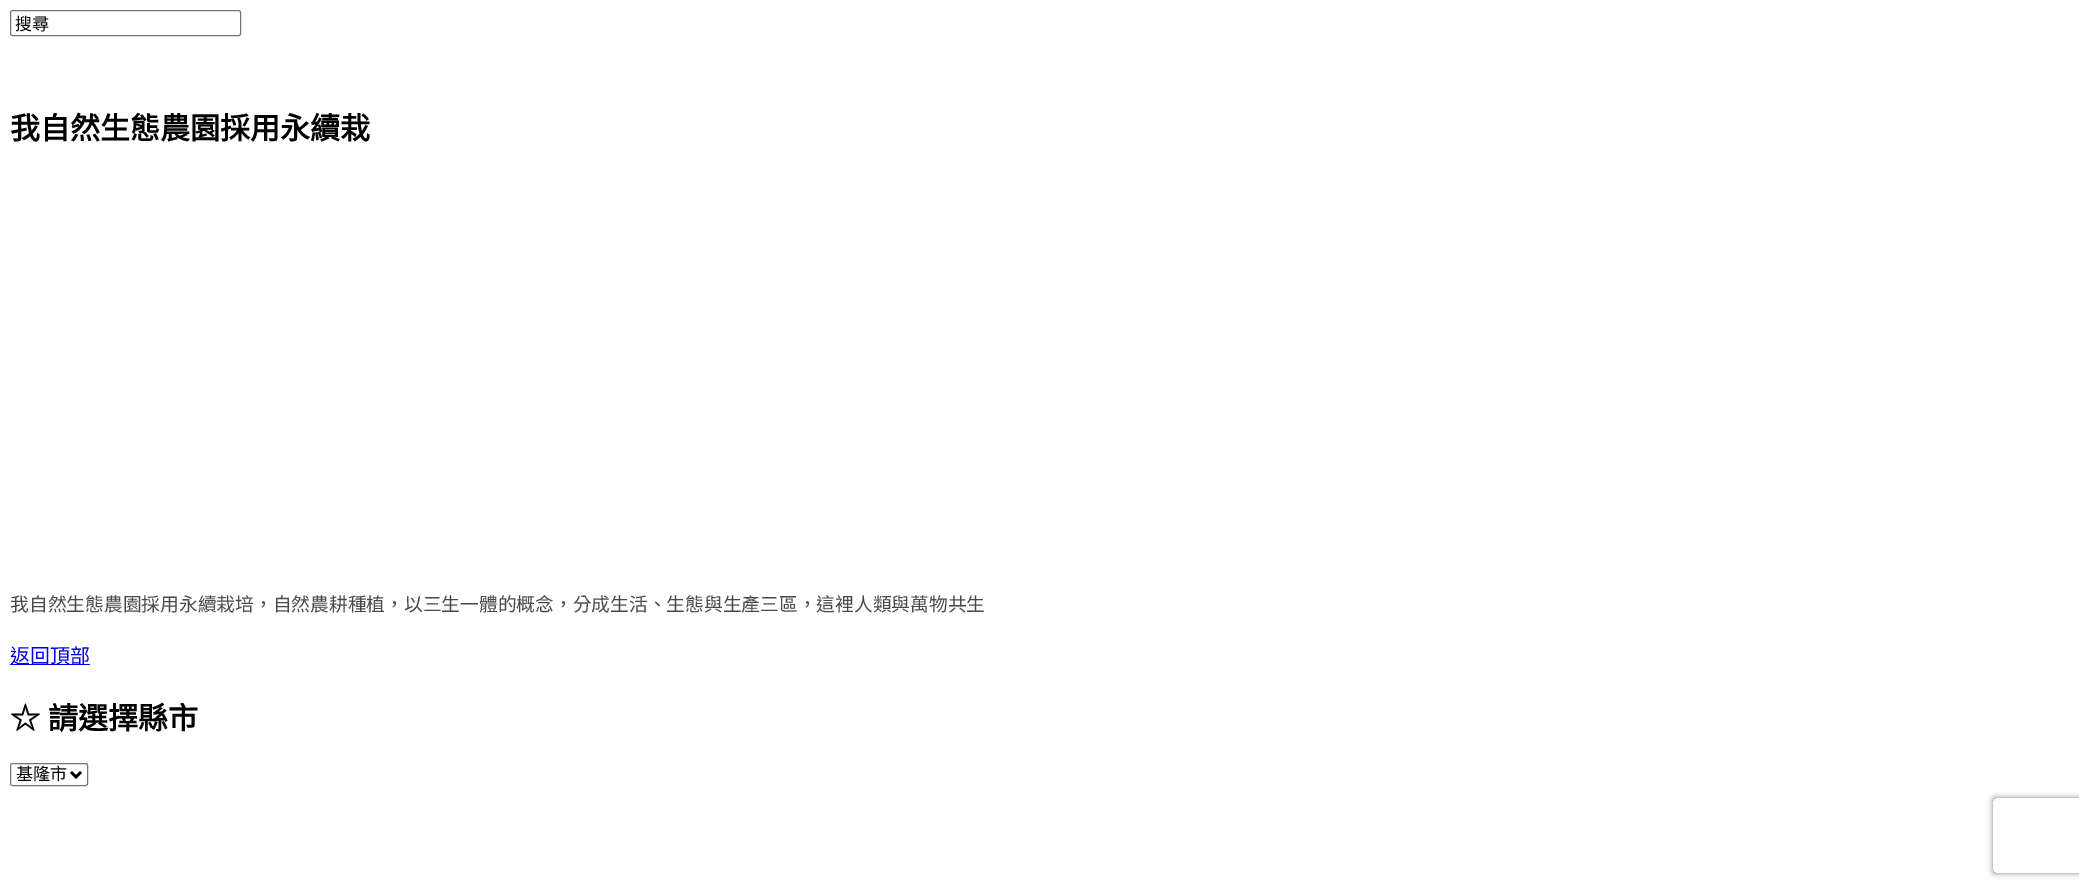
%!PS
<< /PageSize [2079 889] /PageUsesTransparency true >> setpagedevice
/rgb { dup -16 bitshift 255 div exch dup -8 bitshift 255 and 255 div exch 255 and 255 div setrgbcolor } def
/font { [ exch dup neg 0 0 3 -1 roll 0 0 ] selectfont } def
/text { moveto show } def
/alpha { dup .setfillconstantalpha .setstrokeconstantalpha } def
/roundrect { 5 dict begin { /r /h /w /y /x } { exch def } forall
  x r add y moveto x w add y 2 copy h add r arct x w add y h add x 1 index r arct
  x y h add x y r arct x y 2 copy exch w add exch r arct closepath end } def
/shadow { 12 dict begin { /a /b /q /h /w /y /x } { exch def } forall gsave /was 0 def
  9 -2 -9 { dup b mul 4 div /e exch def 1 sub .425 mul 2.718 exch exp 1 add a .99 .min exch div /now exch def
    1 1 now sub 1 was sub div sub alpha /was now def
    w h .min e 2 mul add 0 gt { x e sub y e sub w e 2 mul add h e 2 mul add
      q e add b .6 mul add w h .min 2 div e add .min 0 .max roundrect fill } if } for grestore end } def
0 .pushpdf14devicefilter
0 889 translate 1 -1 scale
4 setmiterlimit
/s1 { /NotoSansCJKTC-Regular 17 font 16#000000 rgb } def
/s2 { /NotoSansCJKTC-Bold 30 font 16#000000 rgb } def
/s3 { /NotoSansCJKTC-Regular 18.75 font 16#4A4949 rgb } def
/s4 { /NotoSansCJKTC-Regular 20 font 16#0000EE rgb } def
16#FFFFFF rgb
0 0 2079 889 rectfill
16#767676 rgb
10.5 10.5 230 25 2 roundrect stroke
s1
(搜尋) 15 30 text
s2
(我自然生態農園採用永續栽) 10 139 text
s3
(我自然生態農園採用永續栽培，自然農耕種植，以三生一體的概念，分成生活、生態與生產三區，這裡人類與萬物共生) 10 611 text
16#0000EE rgb
10 664 80 1 rectfill
s4
(返回頂部) 10 663 text
/NotoSansCJKTC-Bold 30 font
16#000000 rgb
10 729 moveto 1 0 32 (☆ 請選擇縣市) widthshow
16#767676 rgb
10.5 763.5 77 22 2 roundrect stroke
16#000000 rgb
2.5 setlinewidth
71 772 moveto 76 777 lineto 81 772 lineto stroke
s1
(基隆市) 16 780 text
gsave
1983 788 moveto 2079 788 lineto 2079 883 lineto 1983 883 lineto closepath 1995.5 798 moveto 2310.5 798 lineto 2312 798 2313 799 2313 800.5 curveto 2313 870.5 lineto 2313 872 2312 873 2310.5 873 curveto 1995.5 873 lineto 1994 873 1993 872 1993 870.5 curveto 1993 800.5 lineto 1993 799 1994 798 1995.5 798 curveto closepath eoclip newpath
16#808080 rgb
1993 798 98 75 2.5 3 1 shadow
grestore
.poppdf14devicefilter showpage
